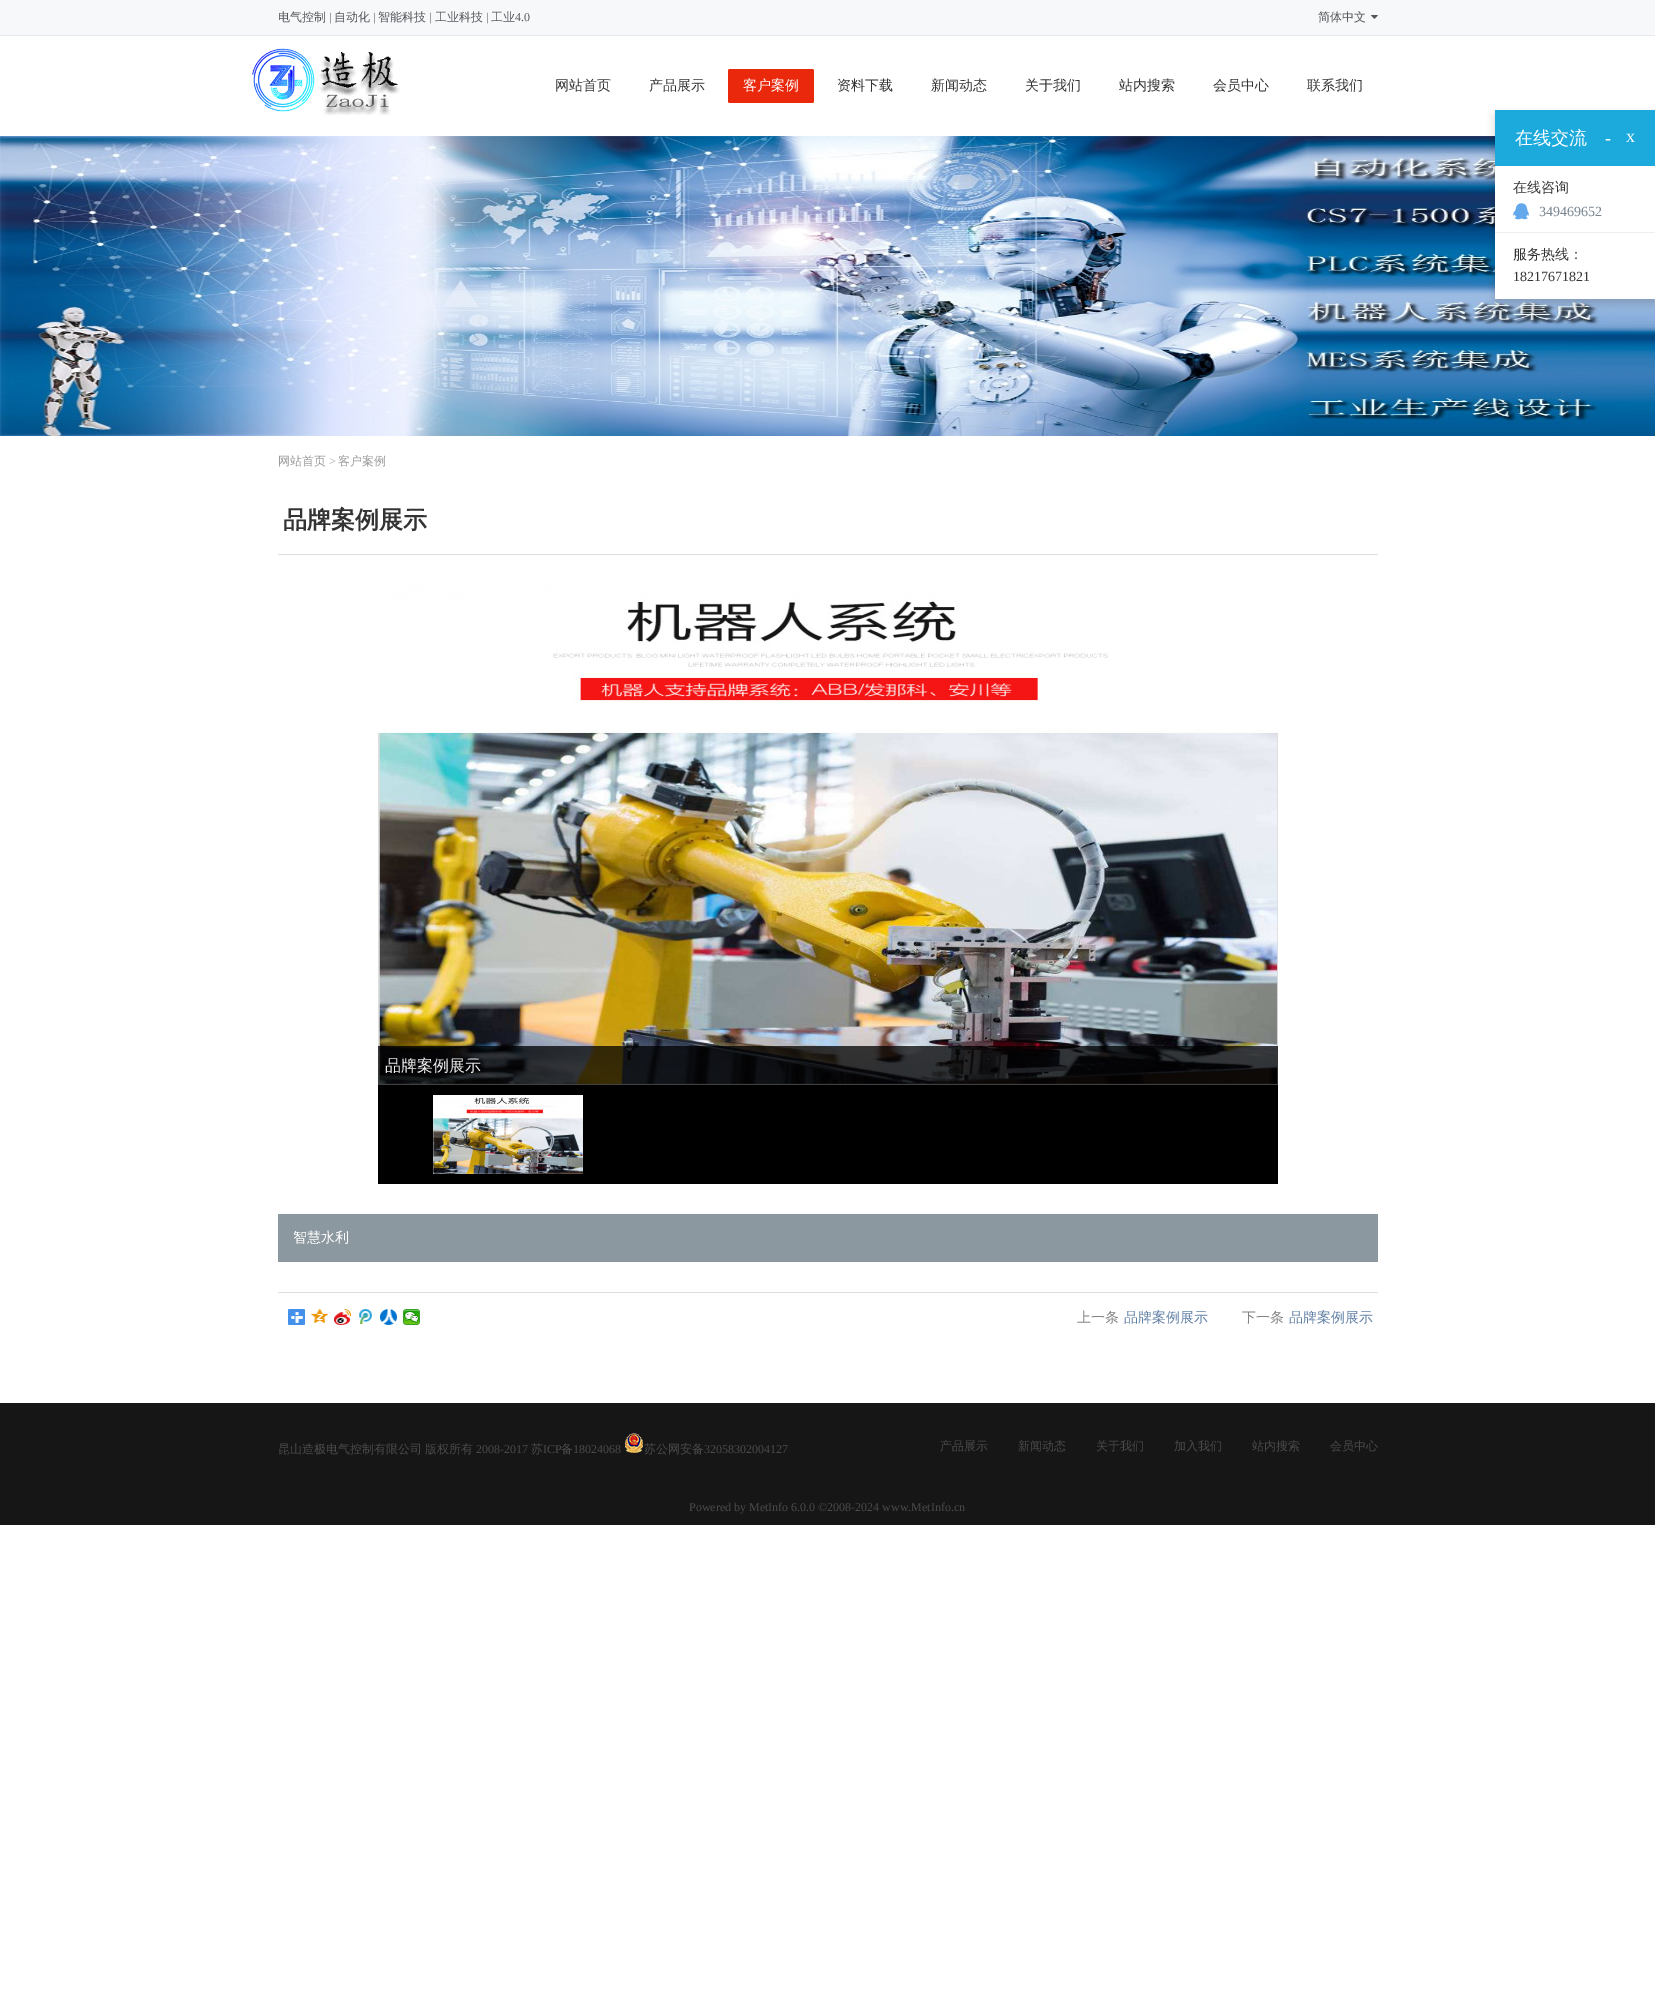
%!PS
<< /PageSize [1655 1990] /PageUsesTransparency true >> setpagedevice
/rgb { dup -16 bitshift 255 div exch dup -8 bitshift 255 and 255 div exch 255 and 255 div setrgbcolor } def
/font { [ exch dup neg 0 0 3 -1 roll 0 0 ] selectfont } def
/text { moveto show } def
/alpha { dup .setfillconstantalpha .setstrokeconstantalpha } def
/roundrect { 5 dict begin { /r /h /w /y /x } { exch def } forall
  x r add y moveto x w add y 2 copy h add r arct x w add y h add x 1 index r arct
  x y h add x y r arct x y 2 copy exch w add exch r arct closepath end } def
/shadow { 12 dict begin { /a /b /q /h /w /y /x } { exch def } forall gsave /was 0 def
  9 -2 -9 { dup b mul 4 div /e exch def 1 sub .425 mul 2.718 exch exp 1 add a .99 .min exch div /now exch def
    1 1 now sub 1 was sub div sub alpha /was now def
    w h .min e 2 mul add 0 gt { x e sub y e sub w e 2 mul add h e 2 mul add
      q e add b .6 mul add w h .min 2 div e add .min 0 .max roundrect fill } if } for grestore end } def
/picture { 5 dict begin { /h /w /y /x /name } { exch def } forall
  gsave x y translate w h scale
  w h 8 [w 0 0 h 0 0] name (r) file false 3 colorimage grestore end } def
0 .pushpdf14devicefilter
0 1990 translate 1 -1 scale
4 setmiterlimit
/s1 { /WenQuanYiZenHei-Medium 12 font 16#53555A rgb } def
/s2 { /LiberationSerif-Regular 12 font 16#53555A rgb } def
/s3 { /WenQuanYiZenHei-Medium 14 font 16#333333 rgb } def
/s4 { /WenQuanYiZenHei-Medium 14 font 16#FFFFFF rgb } def
/s5 { /WenQuanYiZenHei-Medium 18 font 16#FFFFFF rgb } def
/s6 { /LiberationSerif-Regular 18 font 16#FFFFFF rgb } def
/s7 { /LiberationSerif-Regular 14 font 16#76838F rgb } def
/s8 { /LiberationSerif-Regular 14 font 16#333333 rgb } def
/s9 { /WenQuanYiZenHei-Medium 12 font 16#999999 rgb } def
/s10 { /LiberationSerif-Regular 12 font 16#AAAAAA rgb } def
/s11 { /WenQuanYiZenHei-Bold 24 font 16#333333 rgb } def
/s12 { /WenQuanYiZenHei-Medium 16 font 16#EFEFEF rgb } def
/s13 { /WenQuanYiZenHei-Medium 14 font 16#818181 rgb } def
/s14 { /WenQuanYiZenHei-Medium 14 font 16#607FA6 rgb } def
/s15 { /WenQuanYiZenHei-Medium 12 font 16#4A4A4A rgb } def
/s16 { /LiberationSerif-Regular 12 font 16#4A4A4A rgb } def
16#FFFFFF rgb
0 0 1655 1990 rectfill
16#F7F8FA rgb
0 0 1655 35 rectfill
16#E7E8ED rgb
0 35 1655 1 rectfill
s1
(电气控制) 278 21 text
s2
(|) 329 21 text
s1
(自动化) 334 21 text
s2
(|) 373 21 text
s1
(智能科技) 378 21 text
s2
(|) 429 21 text
s1
(工业科技) 435 21 text
s2
(|) 486 21 text
s1
(工业) 491 21 text
s2
(4.0) 515 21 text
s1
(简体中文) 1318 21 text
(pic1.raw) 1371 15 7 4 picture
(pic2.raw) 252 48 148 67 picture
s3
(网站首页) 555 90 text
(产品展示) 649 90 text
16#E9280C rgb
728 69 86 34 2 roundrect fill
s4
(客户案例) 743 90 text
s3
(资料下载) 837 90 text
(新闻动态) 931 90 text
(关于我们) 1025 90 text
(站内搜索) 1119 90 text
(会员中心) 1213 90 text
(联系我们) 1307 90 text
(pic4.raw) 0 136 1655 300 picture
16#040000 rgb
1495 115 160 189 0 4.5 0.17 shadow
16#FFFFFF rgb
1495 166 160 133 rectfill
16#1BAADB rgb
1495 110 160 56 rectfill
s5
(在线交流) 1515 144 text
s6
(-) 1605 144 text
(x) 1626 142 text
s3
(在线咨询) 1513 192 text
(pic3.raw) 1513 203 16 17 picture
s7
(349469652) 1539 216 text
16#EEEEEE rgb
1495 232 160 1 rectfill
s3
(服务热线：) 1513 259 text
s8
(18217671821) 1513 281 text
s9
(网站首页) 278 465 text
s10
(>) 329 465 text
s9
(客户案例) 338 465 text
16#DDDDDD rgb
278 554 1100 1 rectfill
s11
(品牌案例展示) 283 528 text
16#000000 rgb
378 1085 900 99 rectfill
(pic5.raw) 378 585 900 500 picture
0.75 alpha
378 1046 900 39 rectfill
1 alpha
s12
(品牌案例展示) 385 1071 text
(pic6.raw) 433 1095 150 79 picture
16#8C989F rgb
278 1214 1100 48 rectfill
s4
(智慧水利) 293 1242 text
16#DDDDDD rgb
278 1292 1100 1 rectfill
(pic7.raw) 288 1309 17 16 picture
(pic8.raw) 311 1309 17 14 picture
(pic9.raw) 334 1309 17 16 picture
(pic10.raw) 359 1309 13 15 picture
(pic11.raw) 380 1309 17 16 picture
(pic12.raw) 403 1309 17 16 picture
s13
(上一条) 1077 1322 text
s14
(品牌案例展示) 1124 1322 text
s13
(下一条) 1242 1322 text
s14
(品牌案例展示) 1289 1322 text
16#161616 rgb
0 1403 1655 122 rectfill
s15
(昆山造极电气控制有限公司) 278 1453 text
(版权所有) 425 1453 text
s16
(2008-2017) 476 1453 text
s15
(苏) 531 1453 text
s16
(ICP) 543 1453 text
s15
(备) 561 1453 text
s16
(18024068) 573 1453 text
(pic13.raw) 625 1433 18 20 picture
s15
(苏公网安备) 644 1453 text
s16
(32058302004127) 704 1453 text
s15
(产品展示) 940 1450 text
(新闻动态) 1018 1450 text
(关于我们) 1096 1450 text
(加入我们) 1174 1450 text
(站内搜索) 1252 1450 text
(会员中心) 1330 1450 text
s16
(Powered by MetInfo 6.0.0 ©2008-2024 www.MetInfo.cn) 689 1511 text
.poppdf14devicefilter showpage
